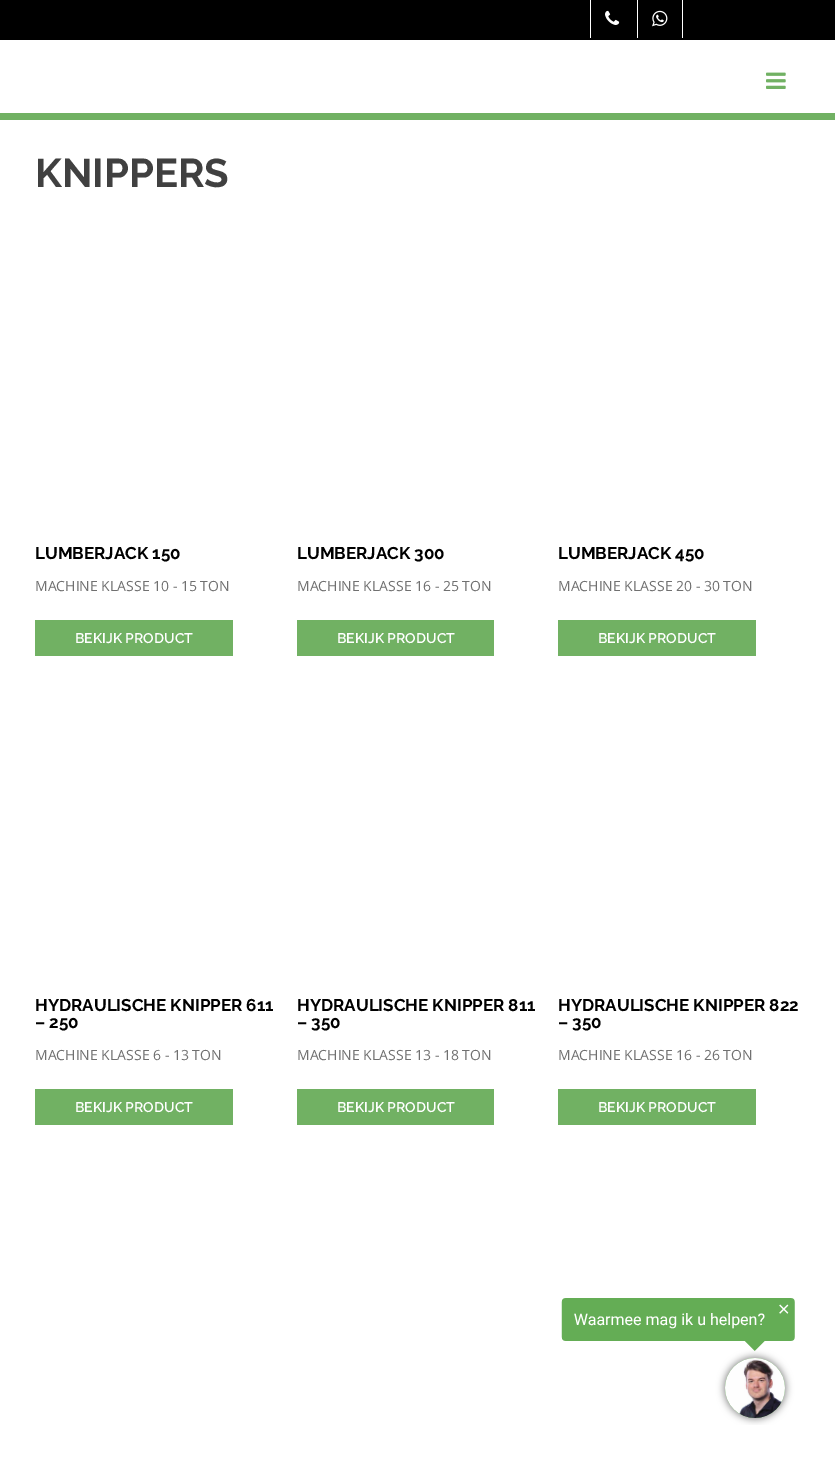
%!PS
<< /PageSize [835 1468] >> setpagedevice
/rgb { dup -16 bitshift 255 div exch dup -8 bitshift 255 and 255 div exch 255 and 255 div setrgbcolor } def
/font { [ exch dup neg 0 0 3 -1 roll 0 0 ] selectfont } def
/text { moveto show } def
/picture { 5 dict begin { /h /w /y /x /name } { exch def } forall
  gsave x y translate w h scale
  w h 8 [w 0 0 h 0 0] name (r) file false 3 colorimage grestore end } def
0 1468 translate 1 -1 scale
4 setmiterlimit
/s1 { /Raleway-Bold 40 font 16#404040 rgb } def
/s2 { /Raleway-Bold 17 font 16#000000 rgb } def
/s3 { /OpenSans-Regular 14 font 16#707070 rgb } def
/s4 { /Raleway-SemiBold 14 font 16#FFFFFF rgb } def
16#FFFFFF rgb
0 0 835 1468 rectfill
16#71B163 rgb
0 113 835 7 rectfill
16#000000 rgb
0 0 835 40 rectfill
16#FFFFFF rgb
590 0 1 38 rectfill
(pic1.raw) 605 10 15 15 picture
682 0 1 38 rectfill
637 0 1 38 rectfill
(pic2.raw) 652 10 16 17 picture
(pic3.raw) 766 72 20 17 picture
s1
(KNIPPERS) 35 187 text
s2
(LUMBERJACK 150) 35 559 text
s3
(MACHINE KLASSE 10 - 15 TON) 35 591 text
16#71B163 rgb
35 620 198 36 rectfill
s4
(BEKIJK PRODUCT) 75 643 text
s2
(LUMBERJACK 300) 297 559 text
s3
(MACHINE KLASSE 16 - 25 TON) 297 591 text
16#71B163 rgb
297 620 197 36 rectfill
s4
(BEKIJK PRODUCT) 337 643 text
s2
(LUMBERJACK 450) 558 559 text
s3
(MACHINE KLASSE 20 - 30 TON) 558 591 text
16#71B163 rgb
558 620 198 36 rectfill
s4
(BEKIJK PRODUCT) 598 643 text
s2
(HYDRAULISCHE KNIPPER 611) 35 1011 text
(– 250) 35 1028 text
s3
(MACHINE KLASSE 6 - 13 TON) 35 1060 text
16#71B163 rgb
35 1089 198 36 rectfill
s4
(BEKIJK PRODUCT) 75 1112 text
s2
(HYDRAULISCHE KNIPPER 811) 297 1011 text
(– 350) 297 1028 text
s3
(MACHINE KLASSE 13 - 18 TON) 297 1060 text
16#71B163 rgb
297 1089 197 36 rectfill
s4
(BEKIJK PRODUCT) 337 1112 text
s2
(HYDRAULISCHE KNIPPER 822) 558 1011 text
(– 350) 558 1028 text
s3
(MACHINE KLASSE 16 - 26 TON) 558 1060 text
16#71B163 rgb
558 1089 198 36 rectfill
s4
(BEKIJK PRODUCT) 598 1112 text
(pic4.raw) 561 1298 234 127 picture
showpage
